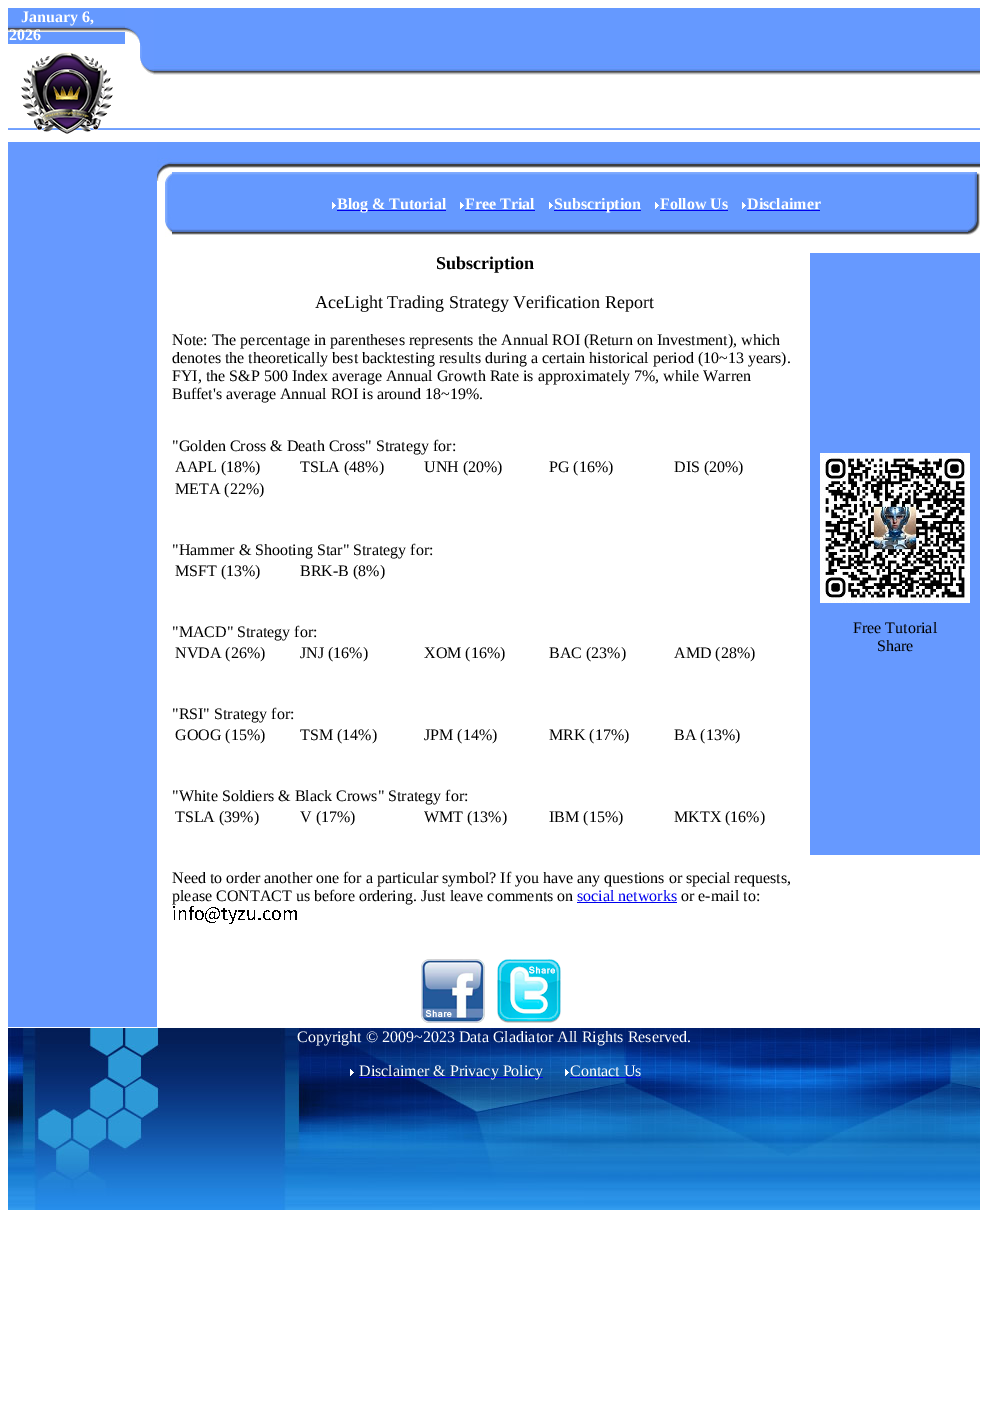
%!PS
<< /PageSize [988 1416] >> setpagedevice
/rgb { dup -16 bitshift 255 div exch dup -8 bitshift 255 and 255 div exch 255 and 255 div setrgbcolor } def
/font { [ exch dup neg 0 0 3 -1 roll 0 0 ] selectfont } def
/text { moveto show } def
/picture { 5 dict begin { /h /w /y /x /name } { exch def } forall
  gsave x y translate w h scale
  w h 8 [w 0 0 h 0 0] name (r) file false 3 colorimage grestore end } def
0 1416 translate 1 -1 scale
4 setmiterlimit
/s1 { /LiberationSerif-Bold 16 font 16#FFFFFF rgb } def
/s2 { /LiberationSerif-Bold 18 font 16#000000 rgb } def
/s3 { /LiberationSerif-Regular 18 font 16#000000 rgb } def
/s4 { /LiberationSerif-Regular 16 font 16#000000 rgb } def
/s5 { /LiberationSerif-Regular 16 font 16#0000EE rgb } def
/s6 { /LiberationSerif-Regular 16 font 16#FFFFFF rgb } def
16#FFFFFF rgb
0 0 988 1416 rectfill
(pic1.raw) 8 128 972 2 picture
(pic2.raw) 8 8 1 36 picture
(pic3.raw) 9 8 116 36 picture
s1
(January 6,) 21 22 text
(2026) 9 40 text
(pic4.raw) 21 52 92 82 picture
(pic5.raw) 125 8 29 67 picture
(pic6.raw) 154 8 389 67 picture
(pic7.raw) 543 8 145 67 picture
(pic8.raw) 688 8 146 67 picture
(pic8.raw) 834 8 146 67 picture
16#6699FF rgb
8 142 149 885 rectfill
(pic9.raw) 157 142 15 95 picture
(pic10.raw) 172 142 1 26 picture
(pic11.raw) 173 142 807 26 picture
(pic12.raw) 172 172 796 63 picture
(pic13.raw) 332 202 4 7 picture
16#0000EE rgb
337 210 109 1 rectfill
s1
(Blog & Tutorial) 337 209 text
(pic13.raw) 460 202 4 7 picture
(Free Trial) 465 209 text
16#0000EE rgb
465 210 70 1 rectfill
(pic13.raw) 549 202 4 7 picture
554 210 87 1 rectfill
s1
(Subscription) 554 209 text
(pic13.raw) 655 202 4 7 picture
(Follow Us) 660 209 text
16#0000EE rgb
660 210 68 1 rectfill
(pic13.raw) 742 202 4 7 picture
s1
(Disclaimer) 747 209 text
16#0000EE rgb
747 210 73 1 rectfill
(pic14.raw) 968 172 12 63 picture
s2
(Subscription) 436 269 text
s3
(AceLight Trading Strategy Verification Report) 315 308 text
s4
(Note: The percentage in parentheses represents the Annual ROI \(Return on Investment\), which) 172 345 text
(denotes the theoretically best backtesting results during a certain historical period \(10~13 years\).) 172 363 text
(FYI, the S&P 500 Index average Annual Growth Rate is approximately 7%, while Warren) 172 381 text
(Buffet's average Annual ROI is around 18~19%.) 172 399 text
("Golden Cross & Death Cross" Strategy for:) 172 451 text
(AAPL \(18%\)) 175 472 text
(TSLA \(48%\)) 300 472 text
(UNH \(20%\)) 424 472 text
(PG \(16%\)) 549 472 text
(DIS \(20%\)) 674 472 text
(META \(22%\)) 175 494 text
("Hammer & Shooting Star" Strategy for:) 172 555 text
(MSFT \(13%\)) 175 576 text
(BRK-B \(8%\)) 300 576 text
("MACD" Strategy for:) 172 637 text
(NVDA \(26%\)) 175 658 text
(JNJ \(16%\)) 300 658 text
(XOM \(16%\)) 424 658 text
(BAC \(23%\)) 549 658 text
(AMD \(28%\)) 674 658 text
("RSI" Strategy for:) 172 719 text
(GOOG \(15%\)) 175 740 text
(TSM \(14%\)) 300 740 text
(JPM \(14%\)) 424 740 text
(MRK \(17%\)) 549 740 text
(BA \(13%\)) 674 740 text
("White Soldiers & Black Crows" Strategy for:) 172 801 text
(TSLA \(39%\)) 175 822 text
(V \(17%\)) 300 822 text
(WMT \(13%\)) 424 822 text
(IBM \(15%\)) 549 822 text
(MKTX \(16%\)) 674 822 text
(Need to order another one for a particular symbol? If you have any questions or special requests,) 172 883 text
(please CONTACT us before ordering. Just leave comments on) 172 901 text
s5
(social networks) 577 901 text
577 902 100 1 rectfill
s4
(or e-mail to:) 681 901 text
(pic15.raw) 173 906 124 18 picture
(pic16.raw) 421 959 64 64 picture
(pic17.raw) 497 959 64 64 picture
16#6699FF rgb
810 253 170 602 rectfill
(pic18.raw) 820 453 150 150 picture
s4
(Free Tutorial) 853 633 text
(Share) 877 651 text
(pic19.raw) 8 1028 972 182 picture
s6
(Copyright © 2009~2023 Data Gladiator All Rights Reserved.) 297 1042 text
(pic20.raw) 350 1069 4 7 picture
16#0000EE rgb
359 1077 184 1 rectfill
s6
(Disclaimer & Privacy Policy) 359 1076 text
(pic21.raw) 565 1069 4 7 picture
(Contact Us) 570 1076 text
16#0000EE rgb
570 1077 71 1 rectfill
showpage
